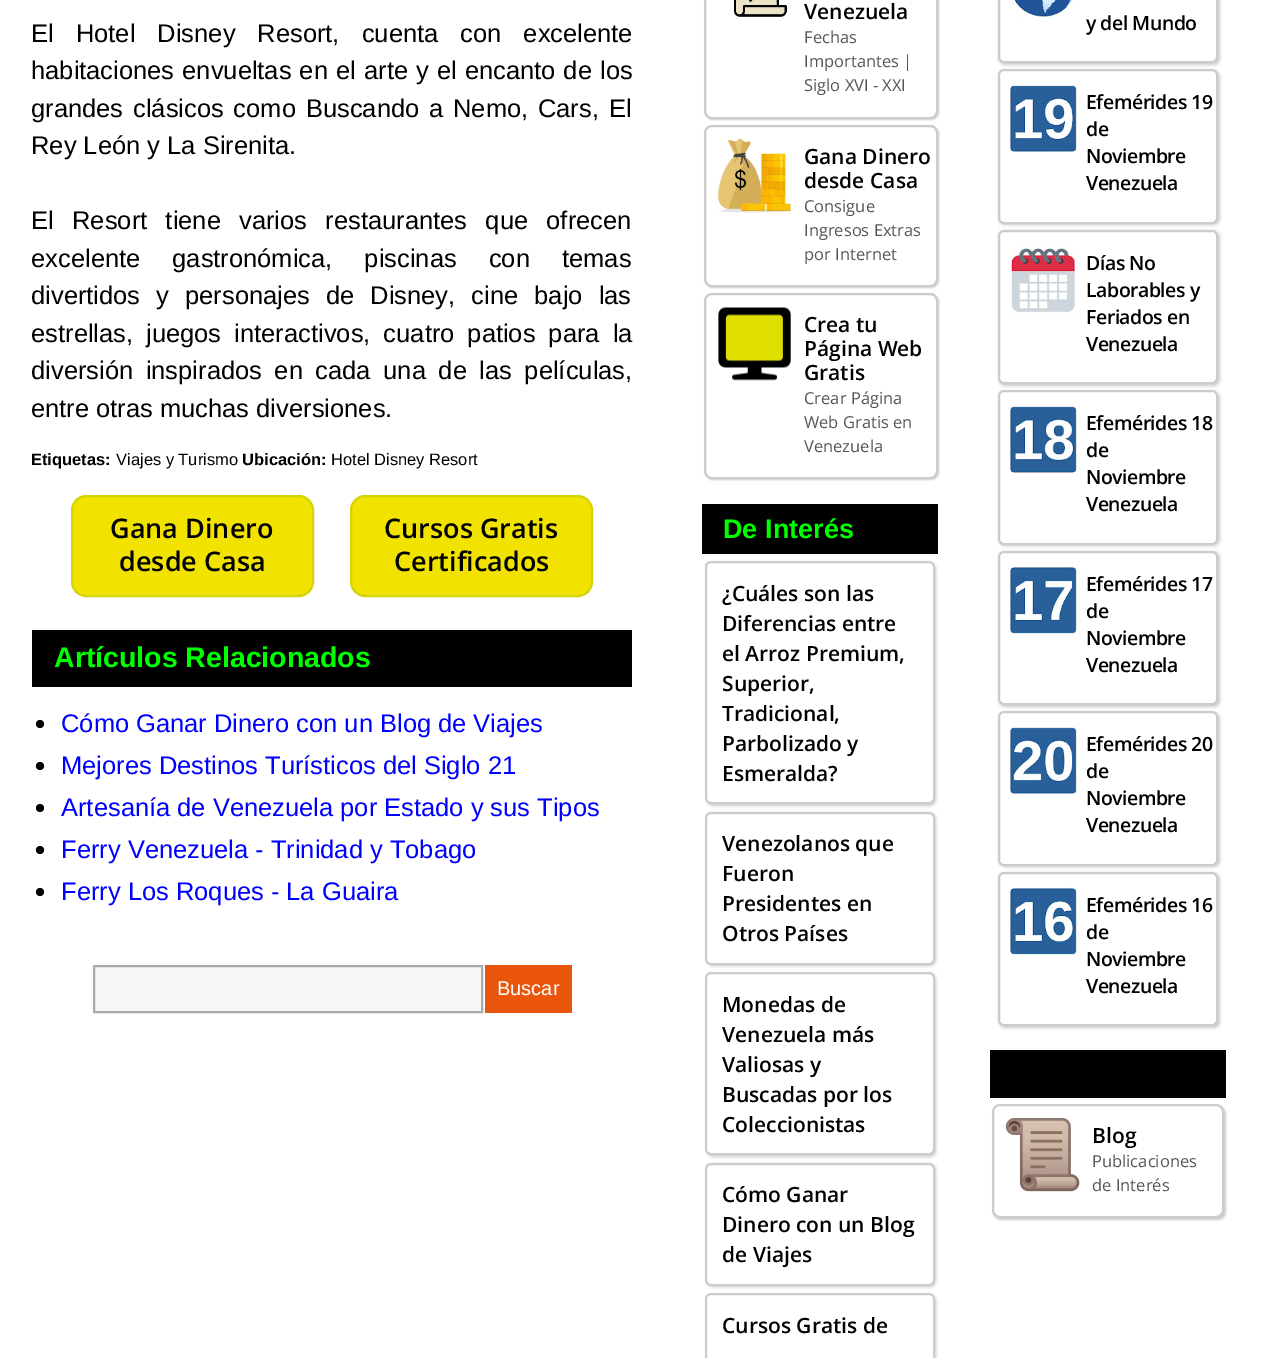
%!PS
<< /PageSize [1264 1358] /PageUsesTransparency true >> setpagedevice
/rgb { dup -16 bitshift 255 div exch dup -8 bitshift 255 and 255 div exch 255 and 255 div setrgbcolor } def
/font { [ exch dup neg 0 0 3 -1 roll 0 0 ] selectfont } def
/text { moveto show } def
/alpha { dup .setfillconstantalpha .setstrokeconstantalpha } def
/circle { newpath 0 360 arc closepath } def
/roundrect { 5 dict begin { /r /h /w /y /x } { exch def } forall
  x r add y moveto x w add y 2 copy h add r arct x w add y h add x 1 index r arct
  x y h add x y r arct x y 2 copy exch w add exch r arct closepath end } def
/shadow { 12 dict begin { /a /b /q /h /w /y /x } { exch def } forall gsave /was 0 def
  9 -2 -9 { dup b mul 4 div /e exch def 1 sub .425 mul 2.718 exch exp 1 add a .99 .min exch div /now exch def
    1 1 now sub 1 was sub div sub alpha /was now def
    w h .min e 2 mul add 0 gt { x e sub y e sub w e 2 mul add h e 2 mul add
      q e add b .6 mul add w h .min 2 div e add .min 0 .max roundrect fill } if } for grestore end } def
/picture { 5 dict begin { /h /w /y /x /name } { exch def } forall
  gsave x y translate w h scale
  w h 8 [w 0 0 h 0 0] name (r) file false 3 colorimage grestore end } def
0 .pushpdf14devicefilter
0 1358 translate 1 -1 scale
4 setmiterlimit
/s1 { /LiberationSans-Regular 25.5 font 16#000000 rgb } def
/s2 { /LiberationSans-Bold 16.5 font 16#000000 rgb } def
/s3 { /LiberationSans-Regular 16.5 font 16#000000 rgb } def
/s4 { /OpenSans-SemiBold 27 font 16#000000 rgb } def
/s5 { /LiberationSans-Bold 28.5 font 16#00FF00 rgb } def
/s6 { /LiberationSans-Regular 25.5 font 16#0000FF rgb } def
/s7 { /LiberationSans-Regular 20 font 16#FFFFFF rgb } def
/s8 { /OpenSans-SemiBold 21 font 16#000000 rgb } def
/s9 { /OpenSans-Regular 16.5 font 16#555555 rgb } def
/s10 { /LiberationSans-Bold 27 font 16#00FF00 rgb } def
16#FFFFFF rgb
0 0 1264 1358 rectfill
/LiberationSans-Regular 25.5 font
16#000000 rgb
31 42 moveto 15 0 32 (El Hotel Disney Resort, cuenta con excelente) widthshow
31 79 moveto 1 0 32 (habitaciones envueltas en el arte y el encanto de los) widthshow
31 117 moveto 2.75 0 32 (grandes clásicos como Buscando a Nemo, Cars, El) widthshow
(Rey León y La Sirenita.) 31 154 text
31 229 moveto 11.25 0 32 (El Resort tiene varios restaurantes que ofrecen) widthshow
31 267 moveto 25 0 32 (excelente gastronómica, piscinas con temas) widthshow
31 304 moveto 9 0 32 (divertidos y personajes de Disney, cine bajo las) widthshow
31 342 moveto 6 0 32 (estrellas, juegos interactivos, cuatro patios para la) widthshow
31 379 moveto 5.5 0 32 (diversión inspirados en cada una de las películas,) widthshow
(entre otras muchas diversiones.) 31 417 text
s2
(Etiquetas:) 31 465 text
s3
(Viajes y Turismo) 116 465 text
s2
(Ubicación:) 242 465 text
s3
(Hotel Disney Resort) 331 465 text
16#F1E200 rgb
72 496 241 100 14 roundrect gsave fill grestore
16#D3D307 rgb
2 setlinewidth
stroke
s4
(Gana Dinero) 110 538 text
(desde Casa) 119 571 text
16#F1E200 rgb
351 496 241 100 14 roundrect gsave fill grestore
16#D3D307 rgb
stroke
s4
(Cursos Gratis) 384 538 text
(Certificados) 394 571 text
32 630 600 57 rectfill
s5
(Artículos Relacionados) 54 667 text
16#000000 rgb
40 724 4 circle fill
s6
(Cómo Ganar Dinero con un Blog de Viajes) 61 732 text
16#000000 rgb
40 766 4 circle fill
s6
(Mejores Destinos Turísticos del Siglo 21) 61 774 text
16#000000 rgb
40 808 4 circle fill
s6
(Artesanía de Venezuela por Estado y sus Tipos) 61 816 text
16#000000 rgb
40 850 4 circle fill
s6
(Ferry Venezuela - Trinidad y Tobago) 61 858 text
16#000000 rgb
40 892 4 circle fill
s6
(Ferry Los Roques - La Guaira) 61 900 text
16#F7F7F7 rgb
94 966 moveto 482 966 lineto 482 1012 lineto 94 1012 lineto closepath gsave fill grestore
16#AAAAAA rgb
stroke
16#E8550B rgb
485 965 87 48 rectfill
s7
(Buscar) 497 995 text
16#CCCCCC rgb
705 -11 234 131 8 1 1 shadow
16#FFFFFF rgb
705 -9 232 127 7 roundrect gsave fill grestore
16#CCCCCC rgb
stroke
(pic1.raw) 734 0 53 17 picture
s8
(Venezuela) 804 19 text
s9
(Fechas) 804 43 text
(Importantes |) 804 67 text
(Siglo XVI - XXI) 804 91 text
16#CCCCCC rgb
705 126 234 162 8 1 1 shadow
16#FFFFFF rgb
705 126 232 160 7 roundrect gsave fill grestore
16#CCCCCC rgb
stroke
(pic2.raw) 717 138 75 75 picture
s8
(Gana Dinero) 804 164 text
(desde Casa) 804 188 text
s9
(Consigue) 804 212 text
(Ingresos Extras) 804 236 text
(por Internet) 804 260 text
16#CCCCCC rgb
705 294 234 186 8 1 1 shadow
16#FFFFFF rgb
705 294 232 184 7 roundrect gsave fill grestore
16#CCCCCC rgb
stroke
(pic3.raw) 718 307 73 74 picture
s8
(Crea tu) 804 332 text
(Página Web) 804 356 text
(Gratis) 804 380 text
s9
(Crear Página) 804 404 text
(Web Gratis en) 804 428 text
(Venezuela) 804 452 text
16#000000 rgb
702 504 236 50 rectfill
s10
(De Interés) 723 538 text
16#CCCCCC rgb
707 563 229 243 6 1.5 1 shadow
16#FFFFFF rgb
706 562 228 241 5 roundrect gsave fill grestore
16#CCCCCC rgb
stroke
s8
(¿Cuáles son las) 722 601 text
(Diferencias entre) 722 631 text
(el Arroz Premium,) 722 661 text
(Superior,) 722 691 text
(Tradicional,) 722 721 text
(Parbolizado y) 722 751 text
(Esmeralda?) 722 781 text
16#CCCCCC rgb
707 813 229 153 6 1.5 1 shadow
16#FFFFFF rgb
706 813 228 151 5 roundrect gsave fill grestore
16#CCCCCC rgb
stroke
s8
(Venezolanos que) 722 851 text
(Fueron) 722 881 text
(Presidentes en) 722 911 text
(Otros Países) 722 941 text
16#CCCCCC rgb
707 974 229 183 6 1.5 1 shadow
16#FFFFFF rgb
706 973 228 181 5 roundrect gsave fill grestore
16#CCCCCC rgb
stroke
s8
(Monedas de) 722 1012 text
(Venezuela más) 722 1042 text
(Valiosas y) 722 1072 text
(Buscadas por los) 722 1102 text
(Coleccionistas) 722 1132 text
16#CCCCCC rgb
707 1164 229 123 6 1.5 1 shadow
16#FFFFFF rgb
706 1164 228 121 5 roundrect gsave fill grestore
16#CCCCCC rgb
stroke
s8
(Cómo Ganar) 722 1202 text
(Dinero con un Blog) 722 1232 text
(de Viajes) 722 1262 text
16#CCCCCC rgb
707 1295 229 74 6 1.5 1 shadow
16#FFFFFF rgb
706 1294 228 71 5 roundrect gsave fill grestore
16#CCCCCC rgb
stroke
s8
(Cursos Gratis de) 722 1333 text
16#CCCCCC rgb
999 -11 221 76 6 1.5 1 shadow
16#FFFFFF rgb
999 -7 218 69 5 roundrect gsave fill grestore
16#CCCCCC rgb
stroke
(pic4.raw) 1013 0 61 18 picture
/OpenSans-SemiBold 19.5 font
16#000000 rgb
1086 30 moveto -0.5 0 (y del Mundo) ashow
16#CCCCCC rgb
999 71 221 154 6 1.5 1 shadow
16#FFFFFF rgb
999 70 218 153 5 roundrect gsave fill grestore
16#CCCCCC rgb
stroke
(pic5.raw) 1009 85 68 68 picture
16#000000 rgb
1086 109 moveto -0.5 0 (Efemérides 19) ashow
1086 136 moveto -0.5 0 (de) ashow
1086 163 moveto -0.5 0 (Noviembre) ashow
1086 190 moveto -0.5 0 (Venezuela) ashow
16#CCCCCC rgb
999 231 221 155 6 1.5 1 shadow
16#FFFFFF rgb
999 231 218 152 5 roundrect gsave fill grestore
16#CCCCCC rgb
stroke
(pic6.raw) 1009 245 68 68 picture
16#000000 rgb
1086 270 moveto -0.5 0 (Días No) ashow
1086 297 moveto -0.5 0 (Laborables y) ashow
1086 324 moveto -0.5 0 (Feriados en) ashow
1086 351 moveto -0.5 0 (Venezuela) ashow
16#CCCCCC rgb
999 392 221 154 6 1.5 1 shadow
16#FFFFFF rgb
999 391 218 153 5 roundrect gsave fill grestore
16#CCCCCC rgb
stroke
(pic7.raw) 1009 406 68 68 picture
16#000000 rgb
1086 430 moveto -0.5 0 (Efemérides 18) ashow
1086 457 moveto -0.5 0 (de) ashow
1086 484 moveto -0.5 0 (Noviembre) ashow
1086 511 moveto -0.5 0 (Venezuela) ashow
16#CCCCCC rgb
999 552 221 155 6 1.5 1 shadow
16#FFFFFF rgb
999 552 218 152 5 roundrect gsave fill grestore
16#CCCCCC rgb
stroke
(pic8.raw) 1009 566 68 68 picture
16#000000 rgb
1086 591 moveto -0.5 0 (Efemérides 17) ashow
1086 618 moveto -0.5 0 (de) ashow
1086 645 moveto -0.5 0 (Noviembre) ashow
1086 672 moveto -0.5 0 (Venezuela) ashow
16#CCCCCC rgb
999 713 221 154 6 1.5 1 shadow
16#FFFFFF rgb
999 712 218 153 5 roundrect gsave fill grestore
16#CCCCCC rgb
stroke
(pic9.raw) 1009 727 68 68 picture
16#000000 rgb
1086 751 moveto -0.5 0 (Efemérides 20) ashow
1086 778 moveto -0.5 0 (de) ashow
1086 805 moveto -0.5 0 (Noviembre) ashow
1086 832 moveto -0.5 0 (Venezuela) ashow
16#CCCCCC rgb
999 873 221 155 6 1.5 1 shadow
16#FFFFFF rgb
999 873 218 152 5 roundrect gsave fill grestore
16#CCCCCC rgb
stroke
(pic10.raw) 1010 887 67 68 picture
16#000000 rgb
1086 912 moveto -0.5 0 (Efemérides 16) ashow
1086 939 moveto -0.5 0 (de) ashow
1086 966 moveto -0.5 0 (Noviembre) ashow
1086 993 moveto -0.5 0 (Venezuela) ashow
990 1050 236 48 rectfill
16#CCCCCC rgb
993 1106 233 114 8 1 1 shadow
16#FFFFFF rgb
993 1105 230 112 7 roundrect gsave fill grestore
16#CCCCCC rgb
stroke
(pic11.raw) 1005 1118 75 74 picture
s8
(Blog) 1092 1143 text
s9
(Publicaciones) 1092 1167 text
(de Interés) 1092 1191 text
.poppdf14devicefilter showpage
